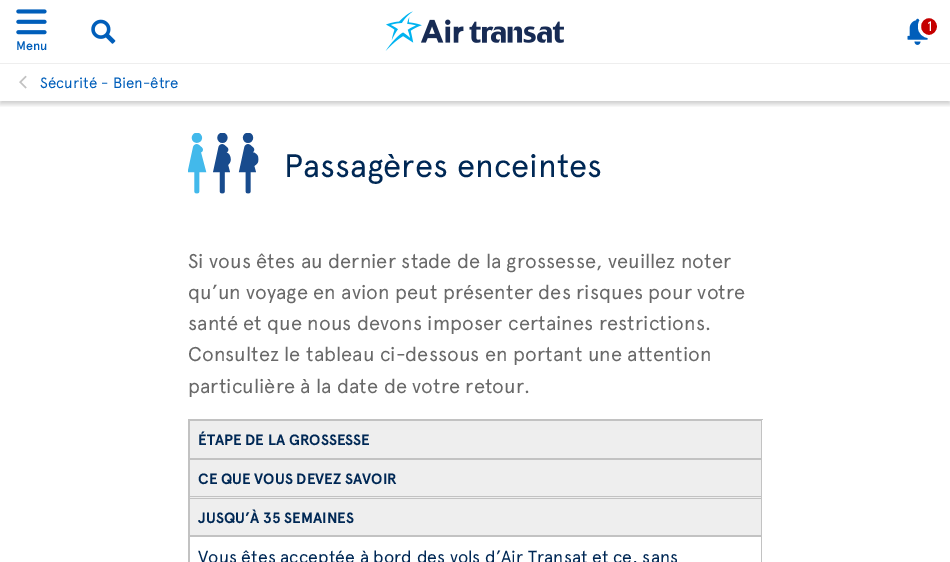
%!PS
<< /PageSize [950 562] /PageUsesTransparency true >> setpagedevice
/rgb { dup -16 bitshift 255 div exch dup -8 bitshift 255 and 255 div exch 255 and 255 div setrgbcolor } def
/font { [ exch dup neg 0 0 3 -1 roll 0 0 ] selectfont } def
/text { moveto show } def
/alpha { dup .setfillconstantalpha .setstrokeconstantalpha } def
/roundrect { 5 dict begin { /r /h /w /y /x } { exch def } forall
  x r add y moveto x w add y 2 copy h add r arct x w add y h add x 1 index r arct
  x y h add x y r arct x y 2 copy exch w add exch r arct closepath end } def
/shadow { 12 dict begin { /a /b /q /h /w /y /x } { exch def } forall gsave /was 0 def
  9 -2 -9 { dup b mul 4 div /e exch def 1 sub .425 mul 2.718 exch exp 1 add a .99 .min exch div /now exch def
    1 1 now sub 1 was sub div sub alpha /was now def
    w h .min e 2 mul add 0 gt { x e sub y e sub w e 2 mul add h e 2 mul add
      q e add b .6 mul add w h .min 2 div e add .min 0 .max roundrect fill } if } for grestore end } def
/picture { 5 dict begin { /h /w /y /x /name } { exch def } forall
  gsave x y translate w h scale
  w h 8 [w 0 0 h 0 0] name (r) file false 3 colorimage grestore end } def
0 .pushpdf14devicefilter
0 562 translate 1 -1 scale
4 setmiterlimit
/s1 { /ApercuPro-Regular 14 font 16#FFFFFF rgb } def
/s2 { /ApercuPro-Medium 12.5 font 16#005EBA rgb } def
/s3 { /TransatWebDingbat-Regular 20 font 16#C2C2C2 rgb } def
/s4 { /ApercuPro-Regular 15 font 16#005EBA rgb } def
/s5 { /ApercuPro-Regular 32.5 font 16#002855 rgb } def
/s6 { /ApercuPro-Regular 20 font 16#696969 rgb } def
/s7 { /ApercuPro-Bold 15 font 16#002855 rgb } def
/s8 { /ApercuPro-Regular 17.5 font 16#002855 rgb } def
16#FFFFFF rgb
0 0 950 562 rectfill
gsave
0 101 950 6 rectclip
16#000000 rgb
0 3 950 101 0 2.5 0.2 shadow
grestore
(pic1.raw) 385 11 179 40 picture
(pic2.raw) 907 18 21 27 picture
16#C50000 rgb
919.5 16.5 19 20 9.5 roundrect gsave fill grestore
16#FFFFFF rgb
3 setlinewidth
stroke
s1
(1) 927 31 text
(pic3.raw) 91 19 25 25 picture
(pic4.raw) 16 9 31 26 picture
s2
(Menu) 16 50 text
16#EEEEEE rgb
0 63 950 1 rectfill
s3
(<) 19 88 text
s4
(Sécurité - Bien-être) 40 88 text
(pic5.raw) 188 133 71 61 picture
s5
(Passagères enceintes) 284 177 text
s6
(Si vous êtes au dernier stade de la grossesse, veuillez noter) 188 268 text
(qu’un voyage en avion peut présenter des risques pour votre) 188 299 text
(santé et que nous devons imposer certaines restrictions.) 188 330 text
(Consultez le tableau ci-dessous en portant une attention) 188 361 text
(particulière à la date de votre retour.) 188 393 text
16#C2C2C2 rgb
188 419 575 1 rectfill
761 419 1 143 rectfill
188 419 1 143 rectfill
16#EEEEEE rgb
190 421 571 37 rectfill
16#C2C2C2 rgb
189 420 572 1 rectfill
189 458 572 2 rectfill
189 420 1 39 rectfill
s7
(ÉTAPE DE LA GROSSESSE) 198 445 text
16#EEEEEE rgb
190 460 571 38 rectfill
16#C2C2C2 rgb
189 496 572 1 rectfill
189 459 1 39 rectfill
s7
(CE QUE VOUS DEVEZ SAVOIR) 198 484 text
16#EEEEEE rgb
190 499 571 36 rectfill
16#C2C2C2 rgb
189 498 572 1 rectfill
189 535 572 2 rectfill
189 498 1 64 rectfill
s7
(JUSQU’À 35 SEMAINES) 198 523 text
s8
(Vous êtes acceptée à bord des vols d’Air Transat et ce, sans) 198 563 text
.poppdf14devicefilter showpage
